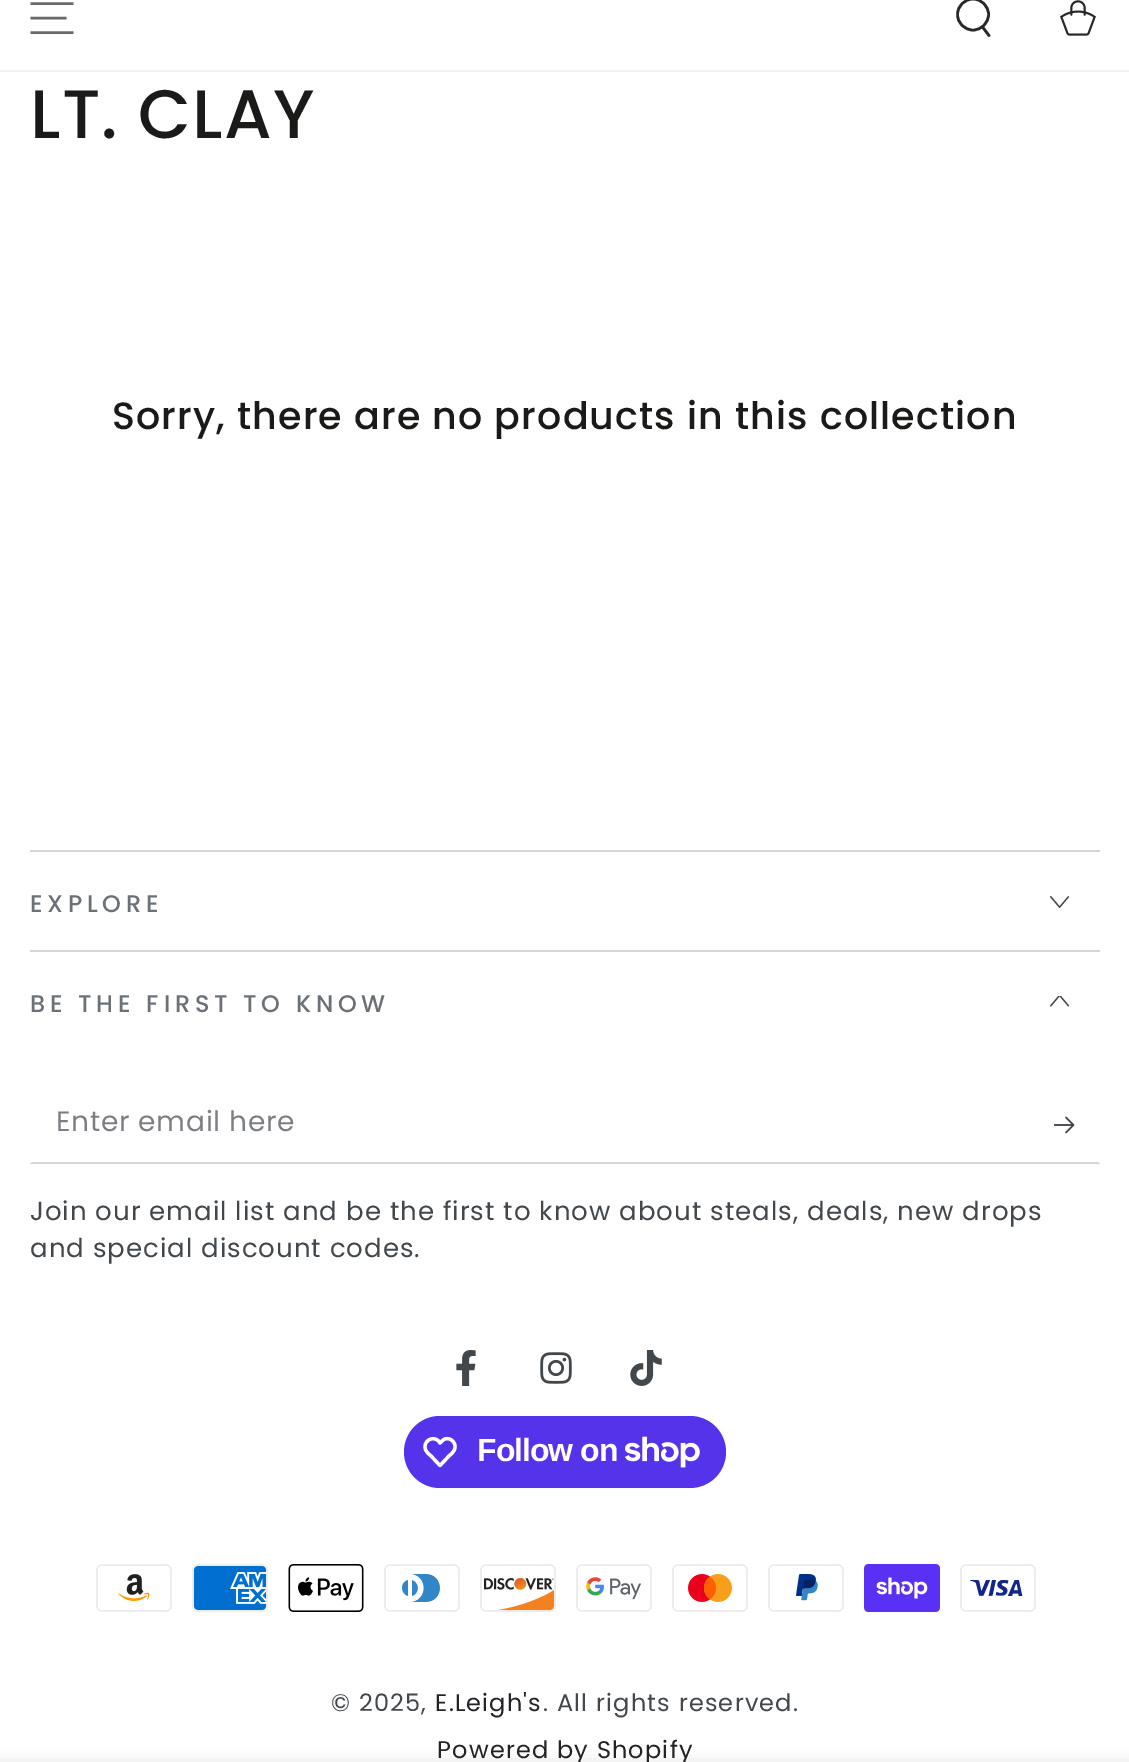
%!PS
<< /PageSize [1129 1762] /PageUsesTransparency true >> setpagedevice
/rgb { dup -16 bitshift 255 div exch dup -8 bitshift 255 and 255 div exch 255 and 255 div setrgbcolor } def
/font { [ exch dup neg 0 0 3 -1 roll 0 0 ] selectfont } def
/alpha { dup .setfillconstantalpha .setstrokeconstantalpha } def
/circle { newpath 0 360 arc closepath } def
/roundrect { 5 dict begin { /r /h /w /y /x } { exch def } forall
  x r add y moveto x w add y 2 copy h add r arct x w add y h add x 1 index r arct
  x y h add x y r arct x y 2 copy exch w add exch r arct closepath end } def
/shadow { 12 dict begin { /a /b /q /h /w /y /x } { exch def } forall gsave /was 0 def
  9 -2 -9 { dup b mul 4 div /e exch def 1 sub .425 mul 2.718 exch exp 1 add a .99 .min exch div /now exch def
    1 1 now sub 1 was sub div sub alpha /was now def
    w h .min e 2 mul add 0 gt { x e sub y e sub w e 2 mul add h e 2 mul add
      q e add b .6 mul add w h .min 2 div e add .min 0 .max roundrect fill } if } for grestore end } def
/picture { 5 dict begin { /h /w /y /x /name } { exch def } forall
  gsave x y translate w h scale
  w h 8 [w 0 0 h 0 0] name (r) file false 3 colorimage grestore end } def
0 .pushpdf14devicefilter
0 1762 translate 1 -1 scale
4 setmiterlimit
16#FFFFFF rgb
0 0 1129 1762 rectfill
16#F2F2F4 rgb
0 70 1129 2 rectfill
16#696969 rgb
2.4 setlinewidth
30.5 32.5 moveto 73.5 32.5 lineto 30.5 18 moveto 66.5 18 lineto 30.5 3.5 moveto 73.5 3.5 lineto stroke
16#282828 rgb
2.6 setlinewidth
973 14.5 15.5 circle stroke
1 setlinecap
982.5 27 moveto 989 35.5 lineto stroke
(pic1.raw) 1060 0 36 36 picture
/Poppins-Medium 68.5 font
16#1A1B18 rgb
30 138 moveto 1.15 0 (LT. CLAY) ashow
/Poppins-Medium 38 font
112 429 moveto 1.15 0 (Sorry, there are no products in this collection) ashow
16#D2D5D9 rgb
30 850 1070 2 rectfill
30 950 1070 2 rectfill
/Poppins-Medium 24 font
16#6B7177 rgb
30 912 moveto 4.75 0 (EXPLORE) ashow
(pic2.raw) 1050 896 20 12 picture
30 1012 moveto 4.75 0 (BE THE FIRST TO KNOW) ashow
(pic3.raw) 1050 996 20 11 picture
16#D2D5D9 rgb
1100 1164 moveto 30 1164 lineto 32 1162 lineto 1098 1162 lineto closepath fill
/Poppins-Regular 28 font
16#7B7E82 rgb
56 1131 moveto 0.75 0 (Enter email here) ashow
(pic4.raw) 1054 1116 21 18 picture
/Poppins-Regular 26 font
16#42474C rgb
30 1220 moveto 1 0 (Join our email list and be the first to know about steals, deals, new drops) ashow
30 1257 moveto 1 0 (and special discount codes.) ashow
(pic5.raw) 456 1350 20 36 picture
(pic6.raw) 540 1352 32 32 picture
(pic7.raw) 630 1350 32 36 picture
16#5433EB rgb
404 1416 322 72 36 roundrect fill
16#FFFFFF rgb
3.3 setlinewidth
0 setlinecap
1 setlinejoin
438.5 1441 moveto 440 1443 lineto 441.5 1441.5 443 1439.5 445 1439 curveto 451 1437 457 1443.5 454.5 1449.5 curveto 453.5 1452.5 450.5 1454.5 448.5 1456.5 curveto 440 1465.5 lineto 431.5 1456.5 lineto 429.5 1454.5 426.5 1452.5 425.5 1449.5 curveto 422.5 1441.5 432.5 1435 438.5 1441 curveto closepath stroke
/LiberationSans-Bold 32 font
477 1461 moveto -1 0 (Follow on) ashow
(pic8.raw) 625 1436 75 32 picture
(pic9.raw) 96 1564 76 48 picture
(pic10.raw) 192 1564 76 48 picture
(pic11.raw) 288 1564 76 48 picture
(pic12.raw) 384 1564 76 48 picture
(pic13.raw) 480 1564 76 48 picture
(pic14.raw) 576 1564 76 48 picture
(pic15.raw) 672 1564 76 48 picture
(pic16.raw) 768 1564 76 48 picture
(pic17.raw) 864 1564 76 48 picture
(pic18.raw) 960 1564 76 48 picture
/Poppins-Regular 24 font
16#42474C rgb
331 1711 moveto 1.2 0 (© 2025,) ashow
16#212326 rgb
435 1711 moveto 1.2 0 (E.Leigh's) ashow
16#42474C rgb
543 1711 moveto 1.2 0 (. All rights reserved.) ashow
16#212326 rgb
437 1758 moveto 1.2 0 (Powered by Shopify) ashow
0 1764 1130 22 0 8 0.15 shadow
.poppdf14devicefilter showpage
